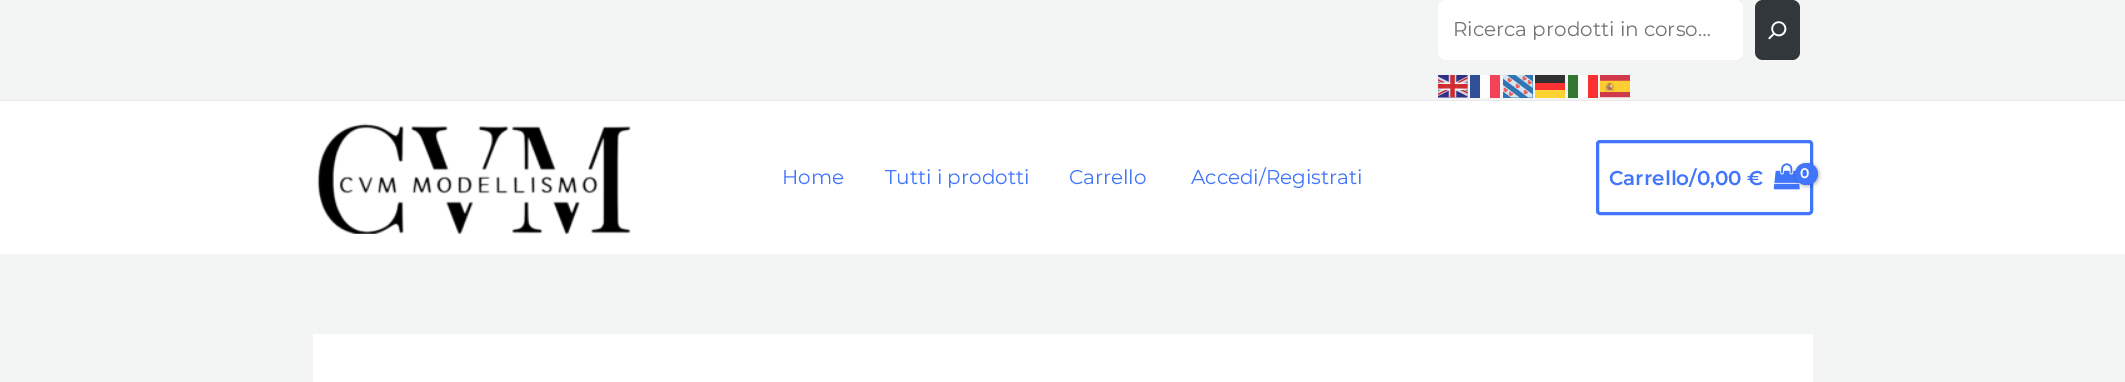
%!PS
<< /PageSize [2125 382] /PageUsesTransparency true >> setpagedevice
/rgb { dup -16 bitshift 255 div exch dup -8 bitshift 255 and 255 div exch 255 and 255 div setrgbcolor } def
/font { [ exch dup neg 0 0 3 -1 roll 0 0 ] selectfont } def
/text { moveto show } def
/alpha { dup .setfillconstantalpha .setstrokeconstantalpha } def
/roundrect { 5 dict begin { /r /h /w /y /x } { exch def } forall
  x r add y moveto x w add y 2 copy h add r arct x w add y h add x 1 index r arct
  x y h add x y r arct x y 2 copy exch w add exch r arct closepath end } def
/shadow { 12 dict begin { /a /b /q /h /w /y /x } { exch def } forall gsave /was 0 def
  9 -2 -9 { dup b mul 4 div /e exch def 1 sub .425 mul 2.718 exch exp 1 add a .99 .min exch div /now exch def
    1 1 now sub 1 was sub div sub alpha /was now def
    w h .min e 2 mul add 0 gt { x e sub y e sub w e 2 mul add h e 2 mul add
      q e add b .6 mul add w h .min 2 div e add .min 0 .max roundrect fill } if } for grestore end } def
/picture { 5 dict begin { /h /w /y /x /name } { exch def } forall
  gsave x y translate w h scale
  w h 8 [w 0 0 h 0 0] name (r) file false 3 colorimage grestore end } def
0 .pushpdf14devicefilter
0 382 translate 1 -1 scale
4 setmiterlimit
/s1 { /Montserrat-Regular 20 font 16#757575 rgb } def
/s2 { /Montserrat-Regular 20 font 16#4175FC rgb } def
/s3 { /Montserrat-SemiBold 20 font 16#4175FC rgb } def
16#F3F5F5 rgb
0 0 2125 382 rectfill
16#EAEAEA rgb
0 100 2125 1 rectfill
16#FFFFFF rgb
1438 0 305 60 8 roundrect fill
s1
(Ricerca prodotti in corso…) 1453 36 text
16#32373C rgb
1755 0 45 60 8 roundrect fill
(pic1.raw) 1768 21 19 19 picture
(pic2.raw) 1438 75 30 23 picture
16#314F97 rgb
1470 75 10 23 rectfill
16#FDFDFD rgb
1480 75 10 23 rectfill
16#F34457 rgb
1490 75 10 23 rectfill
(pic3.raw) 1503 75 30 23 picture
16#313131 rgb
1535 75 30 8 rectfill
16#317731 rgb
1568 75 10 23 rectfill
16#FDFDFD rgb
1578 75 10 23 rectfill
16#FA3131 rgb
1588 75 10 23 rectfill
(pic4.raw) 1600 75 30 23 picture
16#FD3131 rgb
1535 83 30 7 rectfill
16#FDD431 rgb
1535 90 30 8 rectfill
16#FFFFFF rgb
0 101 2125 153 rectfill
(pic5.raw) 317 123 314 111 picture
s2
(Home) 782 184 text
(Tutti i prodotti) 885 184 text
(Carrello) 1069 184 text
(Accedi/Registrati) 1191 184 text
3 setlinewidth
1597.5 141.5 214 72 2.5 roundrect stroke
s3
(Carrello/0,00 €) 1609 185 text
(pic6.raw) 1773 163 27 27 picture
16#000000 rgb
1796 164 23 22 11 2 0.3 shadow
16#4175FC rgb
1795 163 23 22 11 roundrect fill
/Montserrat-SemiBold 14 font
16#FFFFFF rgb
1800 178 moveto -1 0 (0) ashow
313 334 1500 48 rectfill
.poppdf14devicefilter showpage
